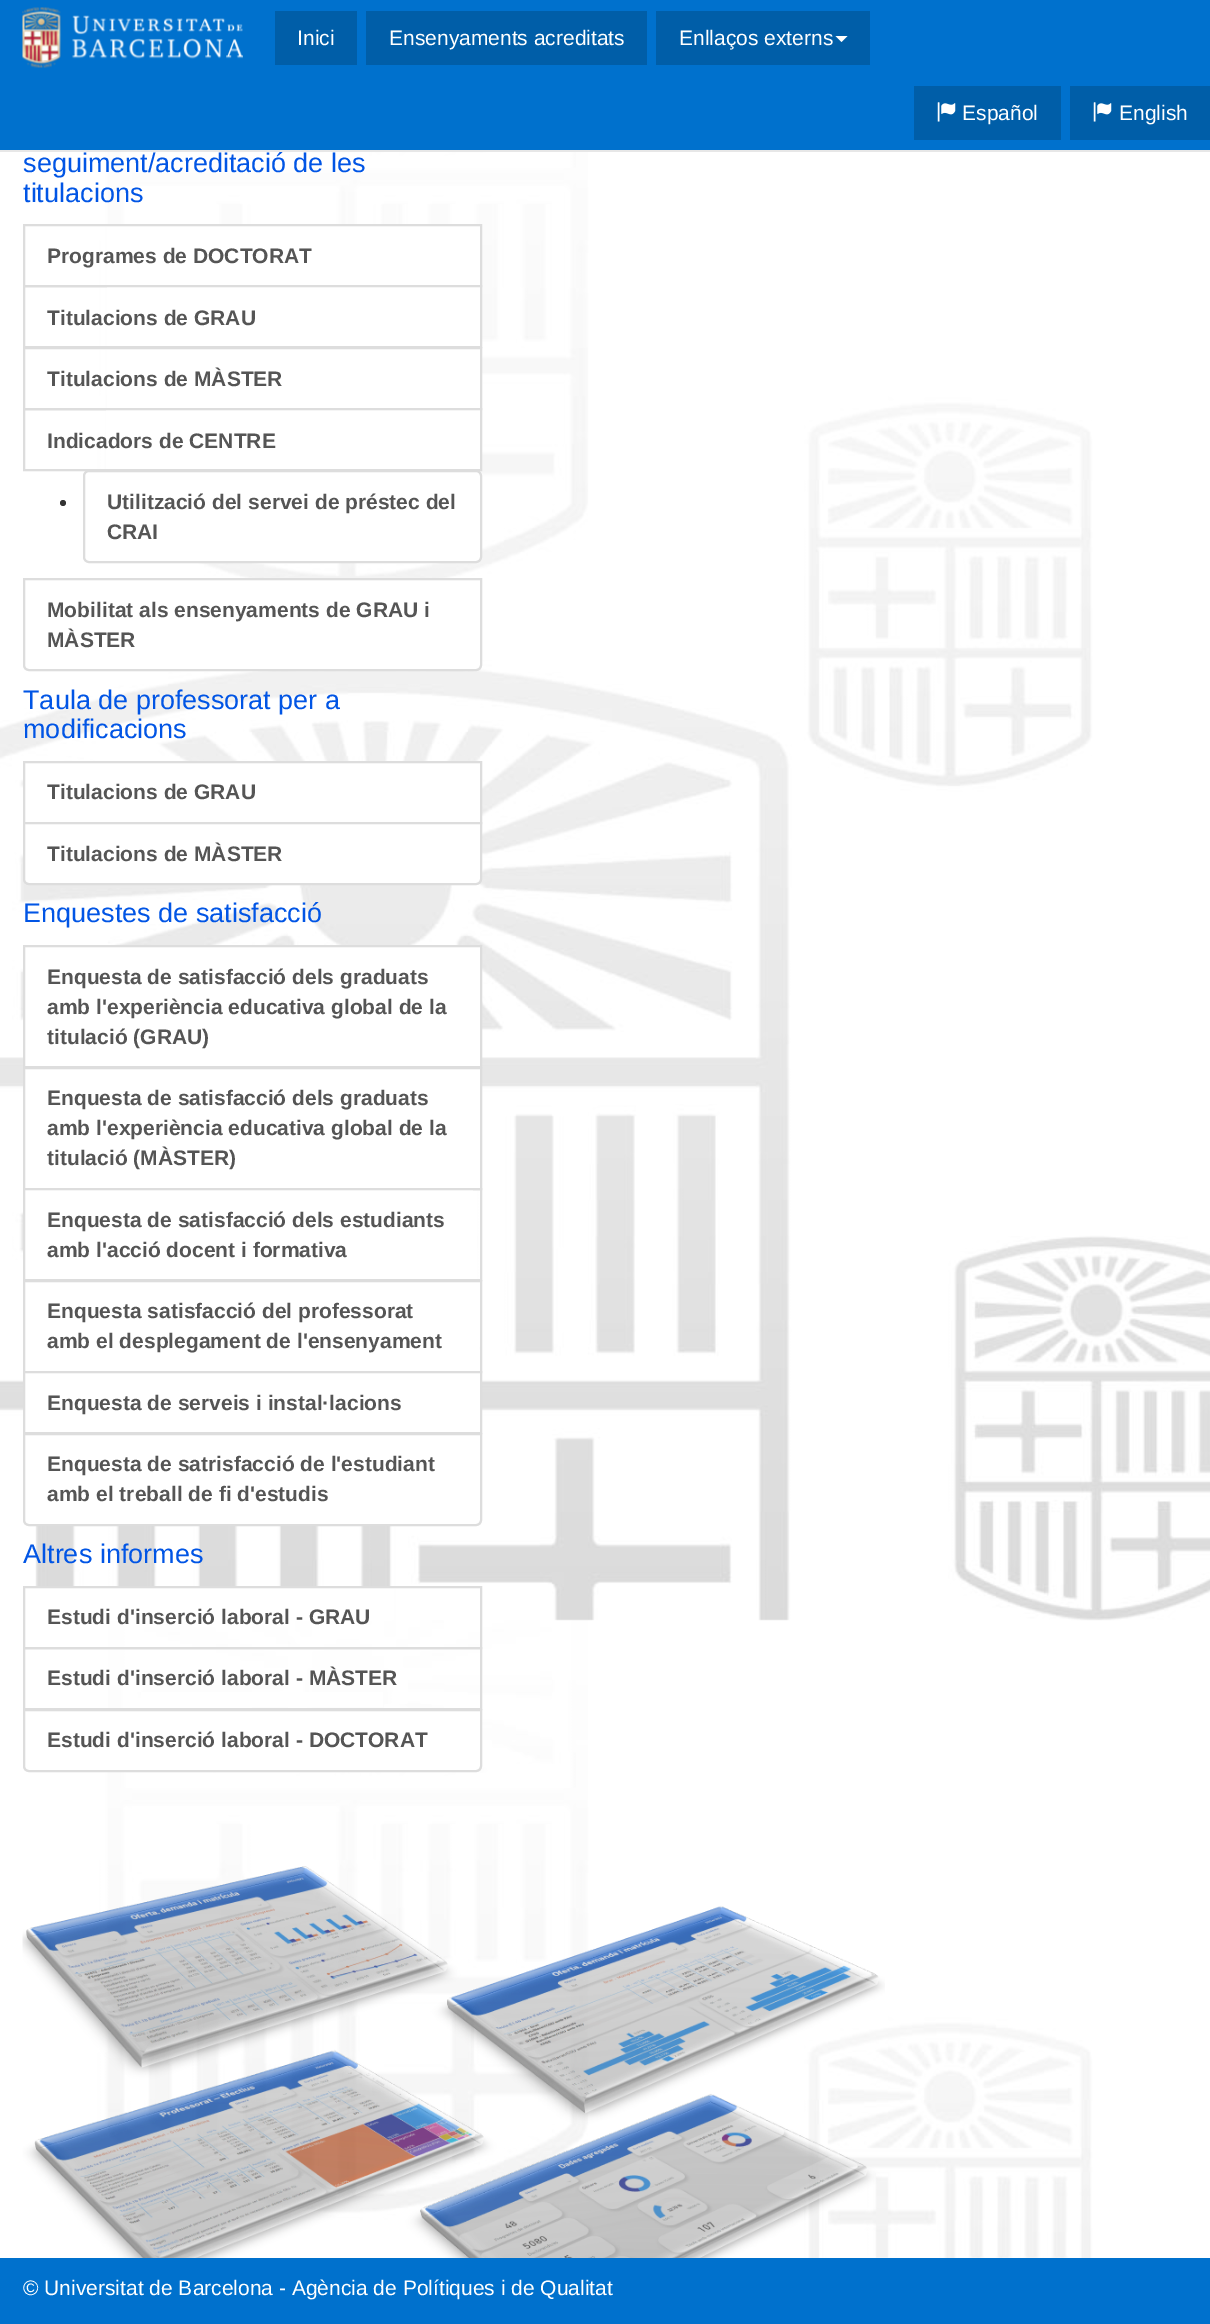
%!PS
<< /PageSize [1210 2324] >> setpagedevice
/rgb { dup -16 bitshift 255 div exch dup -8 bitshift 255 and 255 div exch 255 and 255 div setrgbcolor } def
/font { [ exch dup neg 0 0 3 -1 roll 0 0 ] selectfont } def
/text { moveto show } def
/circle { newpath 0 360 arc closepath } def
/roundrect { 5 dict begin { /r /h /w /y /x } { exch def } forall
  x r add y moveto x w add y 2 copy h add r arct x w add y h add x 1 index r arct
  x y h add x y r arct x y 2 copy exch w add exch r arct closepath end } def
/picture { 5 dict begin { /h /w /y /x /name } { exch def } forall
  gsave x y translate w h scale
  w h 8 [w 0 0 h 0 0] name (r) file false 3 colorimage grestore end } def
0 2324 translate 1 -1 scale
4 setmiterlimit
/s1 { /LiberationSans-Regular 21 font 16#FFFFFF rgb } def
/s2 { /LiberationSans-Regular 27 font 16#0155E5 rgb } def
/s3 { /LiberationSans-Bold 21 font 16#555555 rgb } def
16#FFFFFF rgb
0 0 1210 2324 rectfill
(pic1.raw) 0 152 1210 2106 picture
16#0071CD rgb
0 0 1210 150 rectfill
16#E7E7E7 rgb
0 150 1210 2 rectfill
(pic2.raw) 22 7 221 61 picture
16#005EA8 rgb
275 11 82 54 rectfill
s1
(Inici) 297 45 text
16#005EA8 rgb
366 11 281 54 rectfill
s1
(Ensenyaments acreditats) 389 45 text
16#005EA8 rgb
656 11 214 54 rectfill
s1
(Enllaços externs) 679 45 text
835.5 36 moveto 847.5 36 lineto 841.5 42 lineto closepath fill
16#005EA8 rgb
914 86 147 54 rectfill
(pic3.raw) 937 102 19 20 picture
s1
(Español) 962 120 text
16#005EA8 rgb
1070 86 140 54 rectfill
(pic3.raw) 1093 102 19 20 picture
s1
(English) 1119 120 text
s2
(seguiment/acreditació de les) 23 172 text
(titulacions) 23 202 text
16#FFFFFF rgb
107 226 373 59 rectfill
16#DDDDDD rgb
2 setlinewidth
24 225 457 61 rectstroke
s3
(Programes de DOCTORAT) 47 263 text
16#FFFFFF rgb
107 287 373 59 rectfill
16#DDDDDD rgb
24 286 457 61 rectstroke
s3
(Titulacions de GRAU) 47 325 text
16#FFFFFF rgb
107 349 373 59 rectfill
16#DDDDDD rgb
24 348 457 61 rectstroke
s3
(Titulacions de MÀSTER) 47 386 text
16#FFFFFF rgb
106 410 374 59 rectfill
16#DDDDDD rgb
24 409 457 61 rectstroke
s3
(Indicadors de CENTRE) 47 448 text
16#333333 rgb
63 503 3 circle fill
16#FFFFFF rgb
84 471 397 91 5 roundrect gsave fill grestore
16#DDDDDD rgb
stroke
s3
(Utilització del servei de préstec del) 107 509 text
(CRAI) 107 539 text
16#FFFFFF rgb
24 579 moveto 481 579 lineto 481 665 lineto 481 668 479 670 476 670 curveto 29 670 lineto 26 670 24 668 24 665 curveto closepath gsave fill grestore
16#DDDDDD rgb
stroke
s3
(Mobilitat als ensenyaments de GRAU i) 47 617 text
(MÀSTER) 47 647 text
s2
(Taula de professorat per a) 23 709 text
(modificacions) 23 738 text
16#FFFFFF rgb
24 762 moveto 481 762 lineto 481 823 lineto 24 823 lineto closepath gsave fill grestore
16#DDDDDD rgb
stroke
s3
(Titulacions de GRAU) 47 799 text
16#FFFFFF rgb
24 823 moveto 481 823 lineto 481 879 lineto 481 882 479 884 476 884 curveto 29 884 lineto 26 884 24 882 24 879 curveto closepath gsave fill grestore
16#DDDDDD rgb
stroke
s3
(Titulacions de MÀSTER) 47 861 text
s2
(Enquestes de satisfacció) 23 922 text
16#FFFFFF rgb
24 946 moveto 481 946 lineto 481 1067 lineto 24 1067 lineto closepath gsave fill grestore
16#DDDDDD rgb
stroke
s3
(Enquesta de satisfacció dels graduats) 47 984 text
(amb l'experiència educativa global de la) 47 1014 text
(titulació \(GRAU\)) 47 1044 text
16#FFFFFF rgb
24 1068 moveto 481 1068 lineto 481 1189 lineto 24 1189 lineto closepath gsave fill grestore
16#DDDDDD rgb
stroke
s3
(Enquesta de satisfacció dels graduats) 47 1105 text
(amb l'experiència educativa global de la) 47 1135 text
(titulació \(MÀSTER\)) 47 1165 text
16#FFFFFF rgb
25 1190 448 89 rectfill
16#DDDDDD rgb
24 1189 457 91 rectstroke
s3
(Enquesta de satisfacció dels estudiants) 47 1227 text
(amb l'acció docent i formativa) 47 1257 text
16#FFFFFF rgb
156 1282 323 89 rectfill
16#DDDDDD rgb
24 1281 457 91 rectstroke
s3
(Enquesta satisfacció del professorat) 47 1318 text
(amb el desplegament de l'ensenyament) 47 1348 text
16#FFFFFF rgb
24 1372 moveto 481 1372 lineto 481 1433 lineto 24 1433 lineto closepath gsave fill grestore
16#DDDDDD rgb
stroke
s3
(Enquesta de serveis i instal·lacions) 47 1410 text
16#FFFFFF rgb
24 1434 moveto 481 1434 lineto 481 1520 lineto 481 1523 479 1525 476 1525 curveto 29 1525 lineto 26 1525 24 1523 24 1520 curveto closepath gsave fill grestore
16#DDDDDD rgb
stroke
s3
(Enquesta de satrisfacció de l'estudiant) 47 1471 text
(amb el treball de fi d'estudis) 47 1501 text
s2
(Altres informes) 23 1563 text
16#FFFFFF rgb
35 1588 357 33 rectfill
16#DDDDDD rgb
24 1587 457 61 rectstroke
s3
(Estudi d'inserció laboral - GRAU) 47 1624 text
16#FFFFFF rgb
141 1692 242 15 rectfill
16#DDDDDD rgb
24 1648 457 61 rectstroke
s3
(Estudi d'inserció laboral - MÀSTER) 47 1685 text
16#FFFFFF rgb
24 1710 moveto 481 1710 lineto 481 1766 lineto 481 1769 479 1771 476 1771 curveto 29 1771 lineto 26 1771 24 1769 24 1766 curveto closepath gsave fill grestore
16#DDDDDD rgb
stroke
s3
(Estudi d'inserció laboral - DOCTORAT) 47 1747 text
(pic4.raw) 22 1866 863 392 picture
16#0071CD rgb
0 2258 1210 66 rectfill
s1
(© Universitat de Barcelona - Agència de Polítiques i de Qualitat) 23 2295 text
showpage
